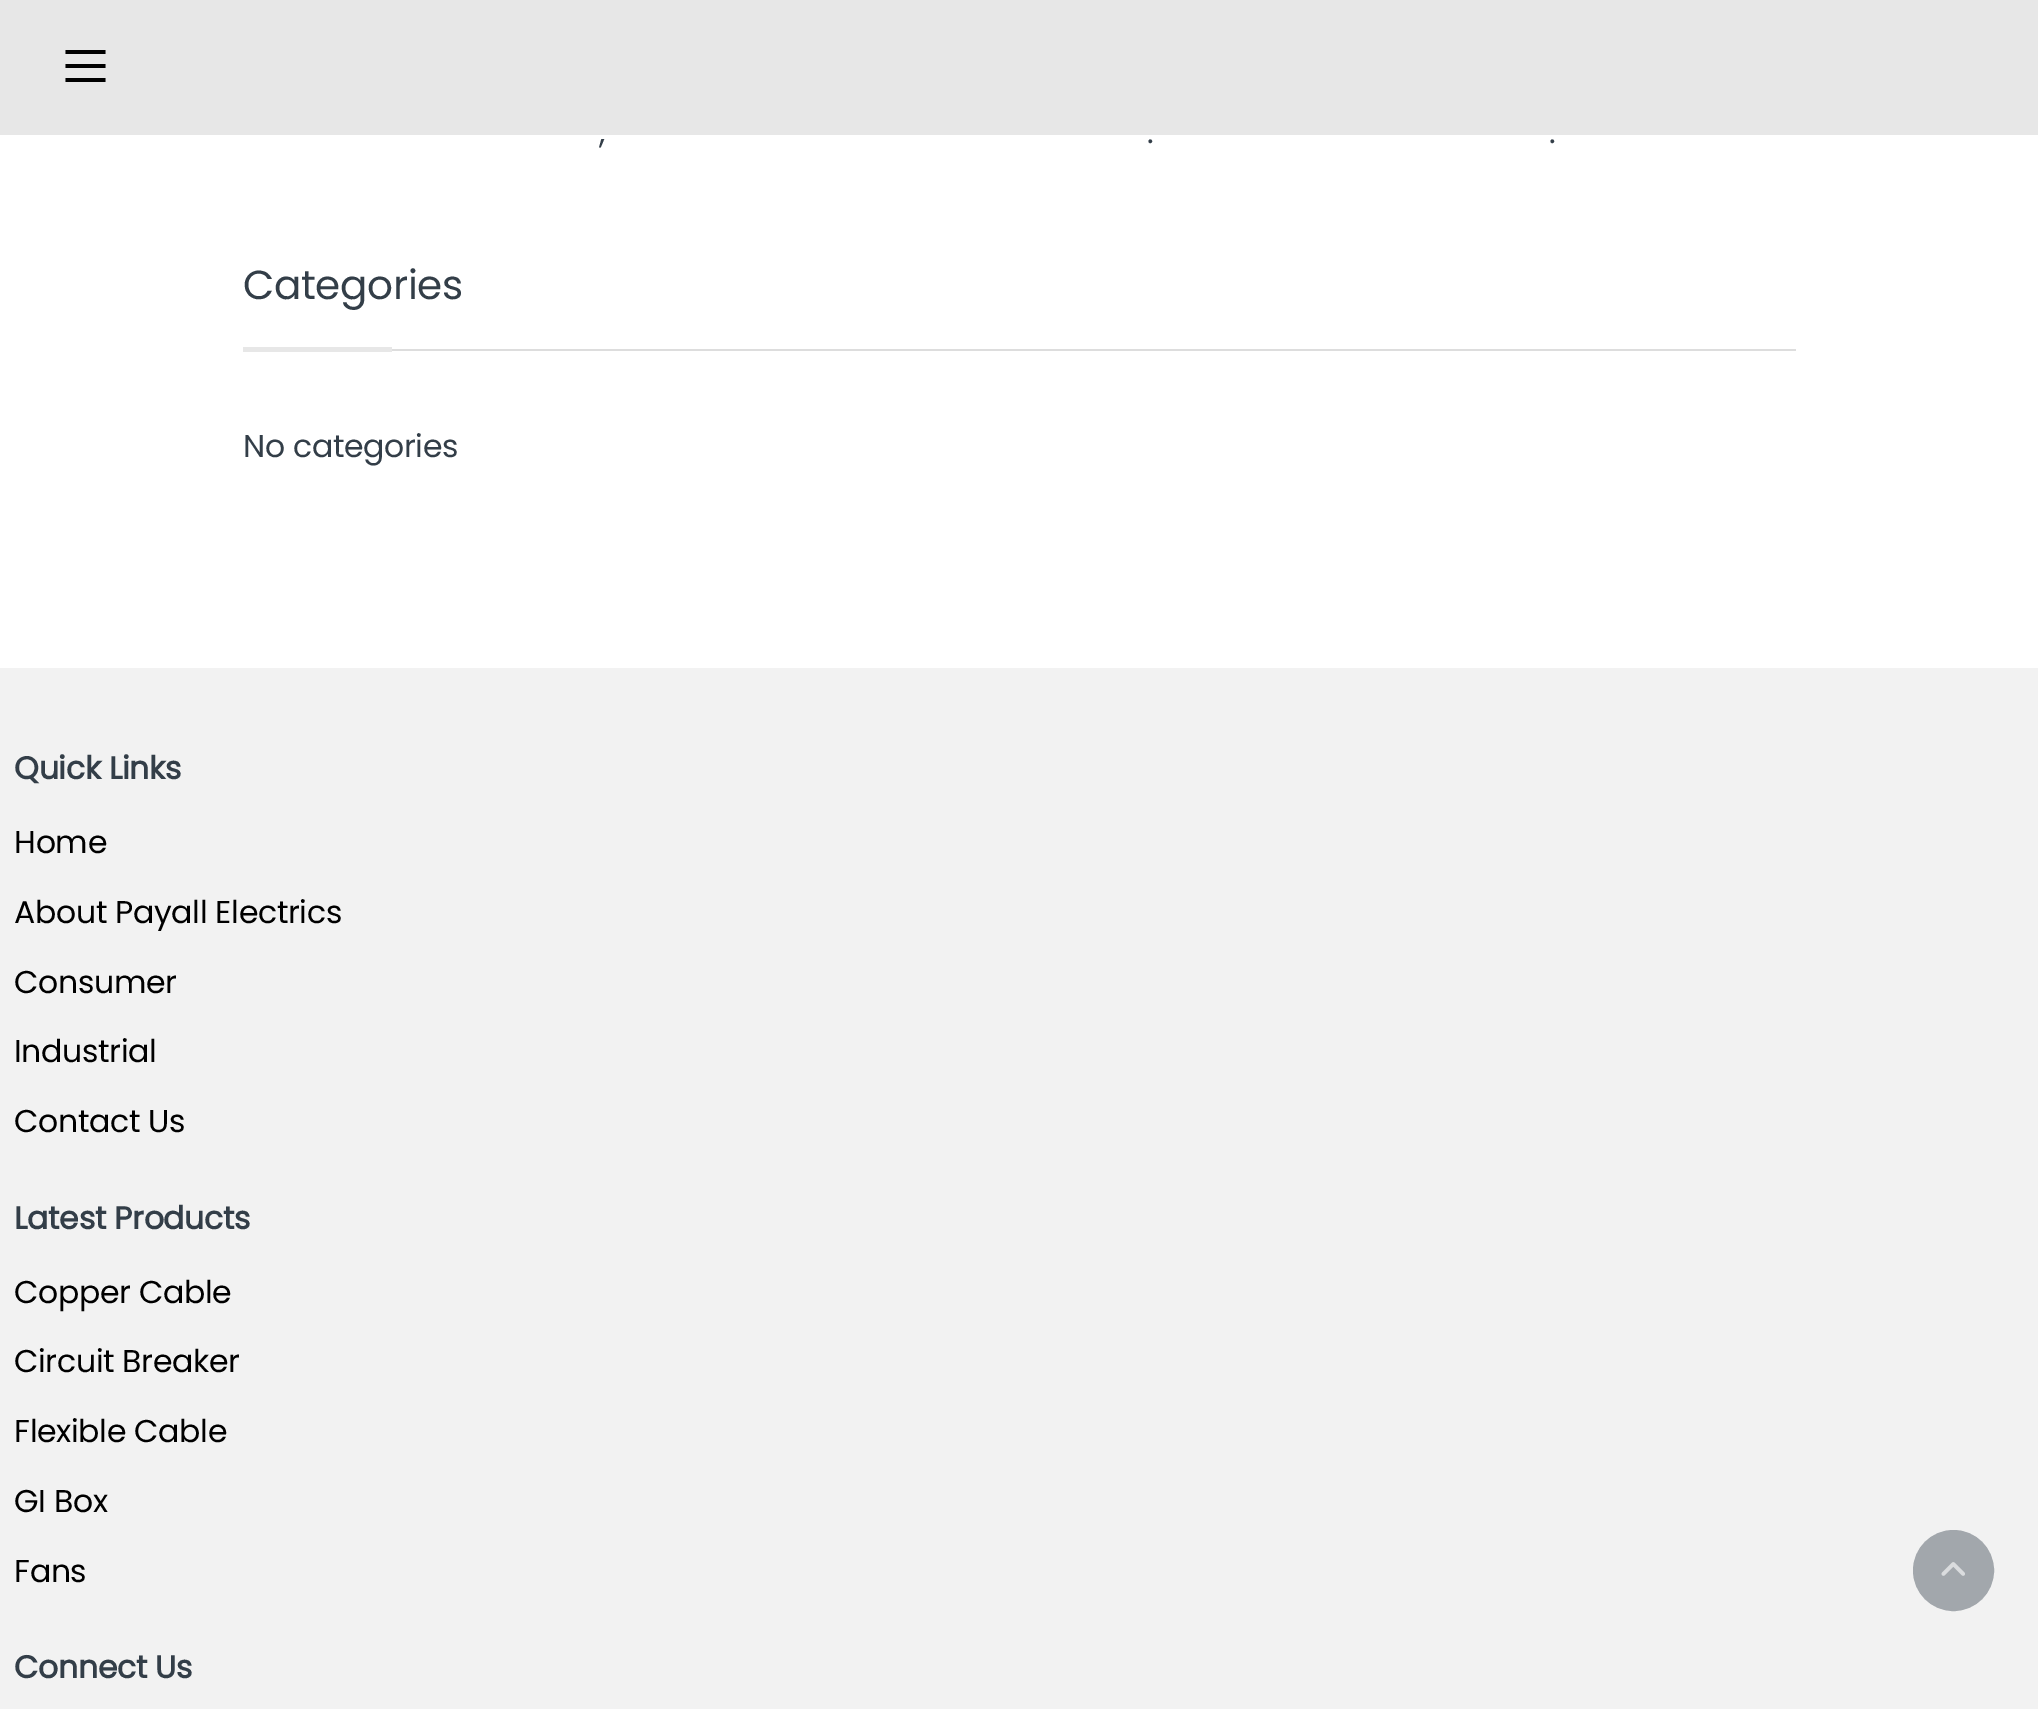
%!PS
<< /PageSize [2038 1709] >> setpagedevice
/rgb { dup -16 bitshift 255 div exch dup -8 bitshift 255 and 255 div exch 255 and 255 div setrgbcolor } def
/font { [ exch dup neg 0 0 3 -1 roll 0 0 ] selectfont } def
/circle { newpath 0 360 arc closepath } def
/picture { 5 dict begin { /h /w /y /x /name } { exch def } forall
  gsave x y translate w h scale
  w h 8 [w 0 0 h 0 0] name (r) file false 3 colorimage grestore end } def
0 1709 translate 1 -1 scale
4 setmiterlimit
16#FFFFFF rgb
0 0 2038 1709 rectfill
16#E7E7E7 rgb
0 0 2038 135 rectfill
16#000000 rgb
65.5 82 moveto 65.5 78 lineto 105.5 78 lineto 105.5 82 lineto closepath 65.5 64 moveto 105.5 64 lineto 105.5 68 lineto 65.5 68 lineto closepath 65.5 50 moveto 105.5 50 lineto 105.5 54 lineto 65.5 54 lineto closepath fill
/Poppins-Regular 31.5 font
16#333E48 rgb
599 143 moveto -0.3 0 (,) ashow
1147 143 moveto -0.3 0 (.) ashow
1549 143 moveto -0.3 0 (.) ashow
16#DDDDDD rgb
392 349 1404 2 rectfill
/Poppins-Regular 40.5 font
16#333E48 rgb
243 299 moveto -0.3 0 (Categories) ashow
16#E7E7E7 rgb
243 347 149 5 rectfill
/Poppins-Regular 31.5 font
16#333E48 rgb
243 457 moveto -0.3 0 (No categories) ashow
16#F2F2F2 rgb
0 668 2038 1041 rectfill
/Poppins-Bold 31.5 font
16#333E48 rgb
14 779 moveto -0.3 0 (Quick Links) ashow
/Poppins-Regular 31.5 font
16#000000 rgb
14 853 moveto -0.3 0 (Home) ashow
14 923 moveto -0.3 0 (About Payall Electrics) ashow
14 993 moveto -0.3 0 (Consumer) ashow
14 1062 moveto -0.3 0 (Industrial) ashow
14 1132 moveto -0.3 0 (Contact Us) ashow
/Poppins-Bold 31.5 font
16#333E48 rgb
14 1229 moveto -0.3 0 (Latest Products) ashow
/Poppins-Regular 31.5 font
16#000000 rgb
14 1303 moveto -0.3 0 (Copper Cable) ashow
14 1372 moveto -0.3 0 (Circuit Breaker) ashow
14 1442 moveto -0.3 0 (Flexible Cable) ashow
14 1512 moveto -0.3 0 (GI Box) ashow
14 1582 moveto -0.3 0 (Fans) ashow
/Poppins-Bold 31.5 font
16#333E48 rgb
14 1678 moveto -0.3 0 (Connect Us) ashow
16#A2A7AC rgb
1953.5 1570.5 39.5 circle gsave fill grestore
2 setlinewidth
stroke
(pic1.raw) 1941 1562 24 14 picture
showpage
